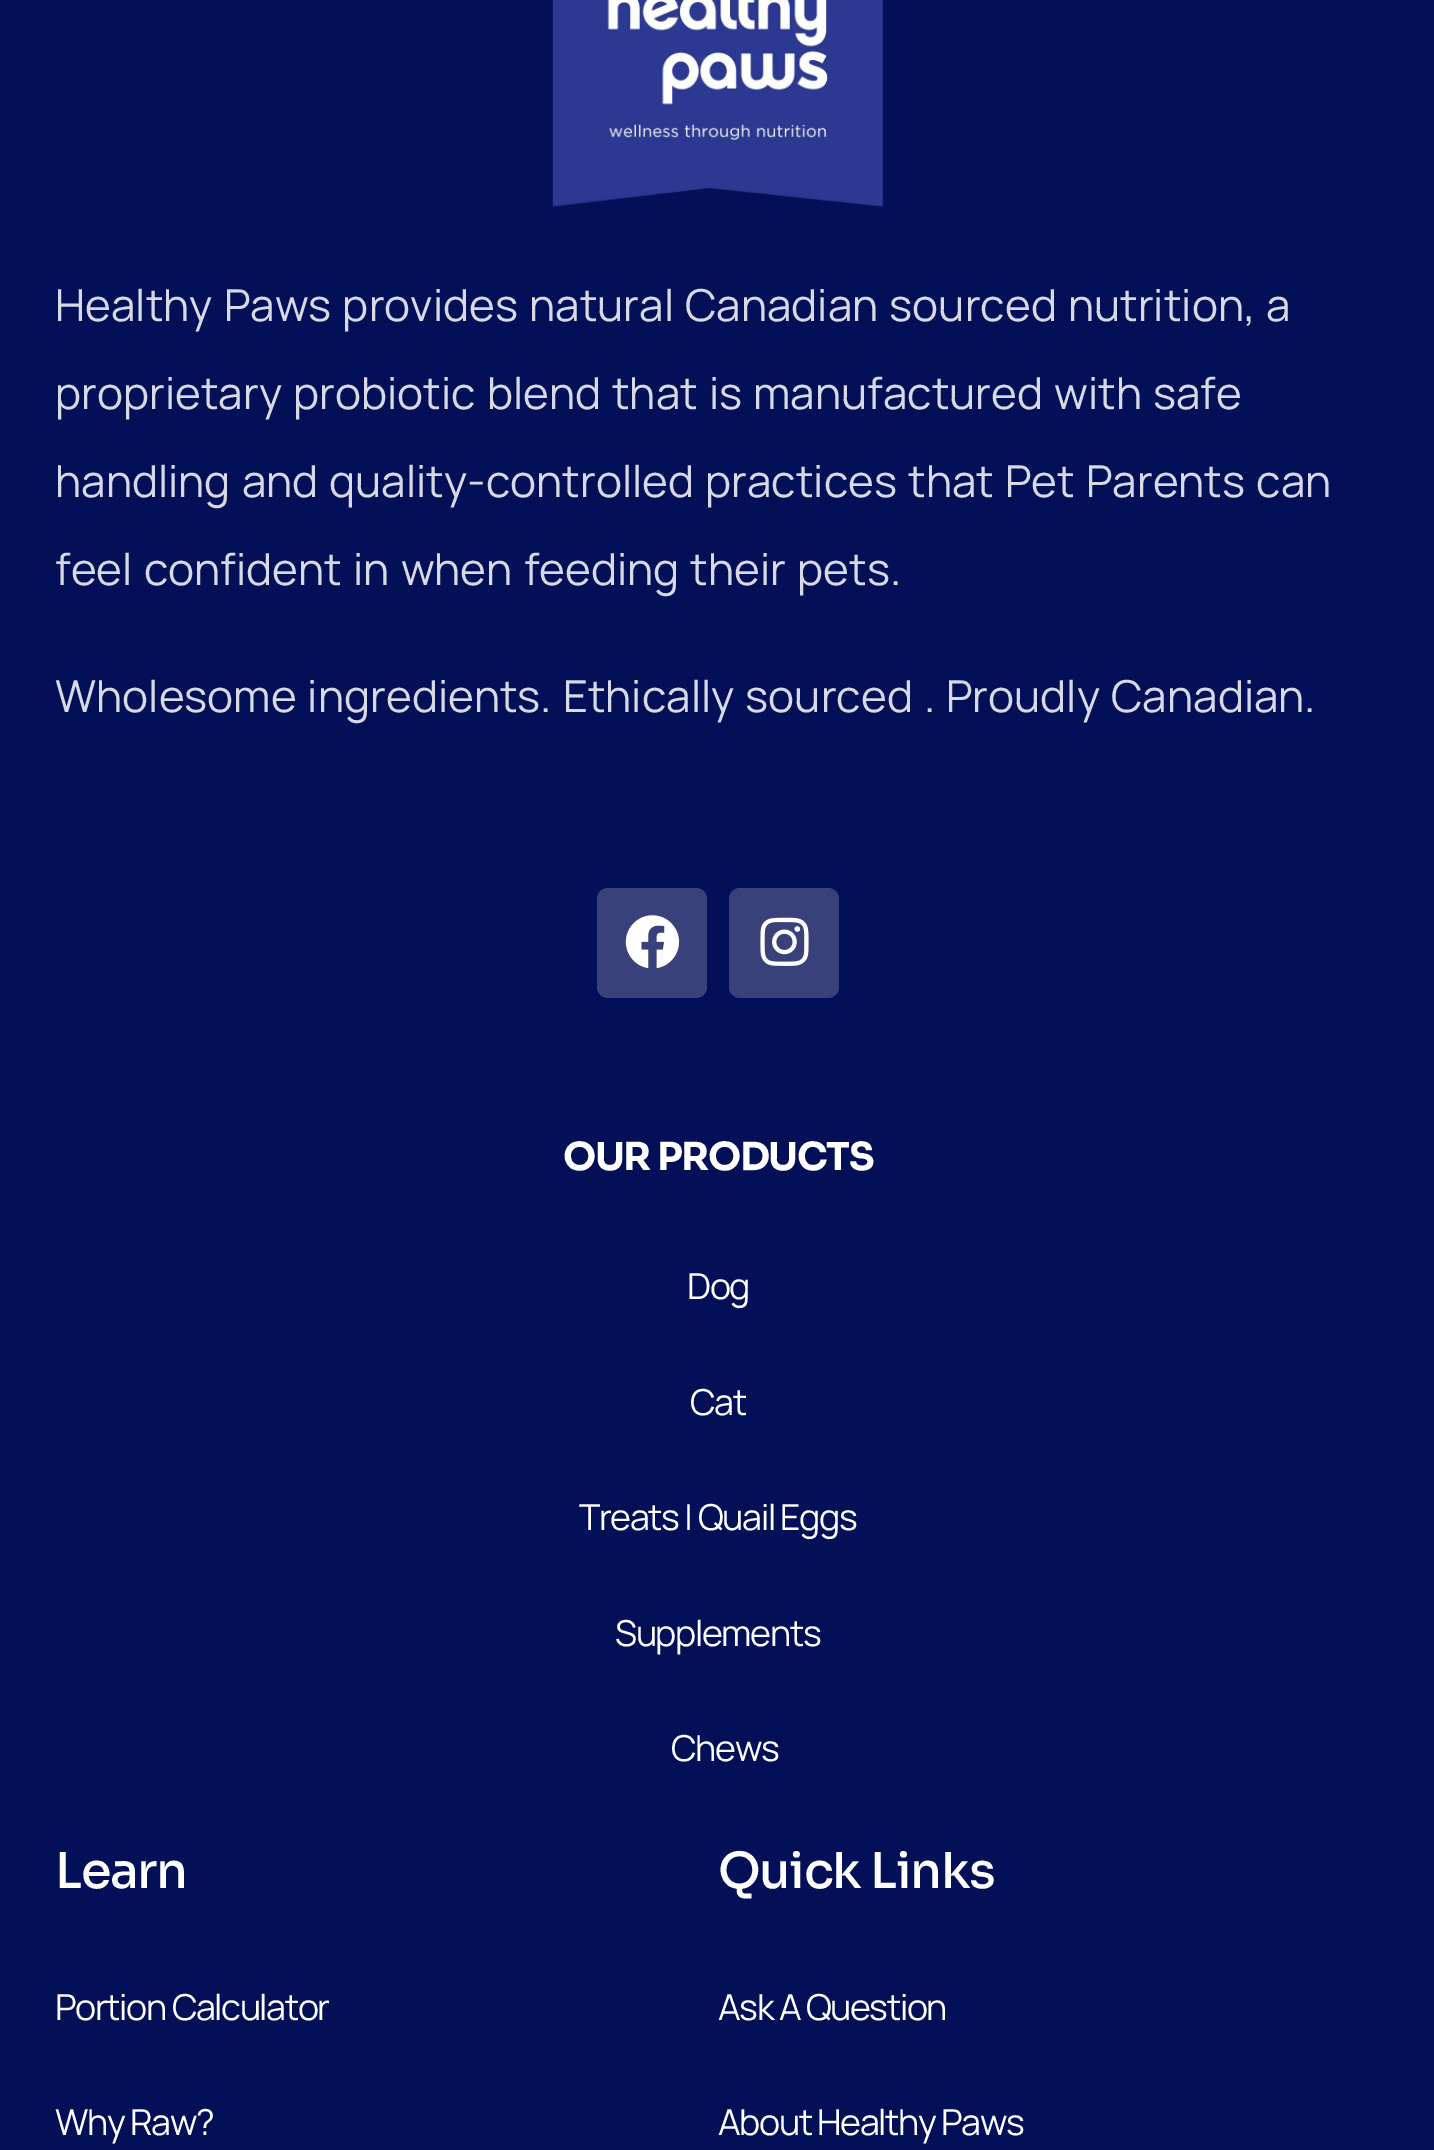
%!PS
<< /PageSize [1434 2150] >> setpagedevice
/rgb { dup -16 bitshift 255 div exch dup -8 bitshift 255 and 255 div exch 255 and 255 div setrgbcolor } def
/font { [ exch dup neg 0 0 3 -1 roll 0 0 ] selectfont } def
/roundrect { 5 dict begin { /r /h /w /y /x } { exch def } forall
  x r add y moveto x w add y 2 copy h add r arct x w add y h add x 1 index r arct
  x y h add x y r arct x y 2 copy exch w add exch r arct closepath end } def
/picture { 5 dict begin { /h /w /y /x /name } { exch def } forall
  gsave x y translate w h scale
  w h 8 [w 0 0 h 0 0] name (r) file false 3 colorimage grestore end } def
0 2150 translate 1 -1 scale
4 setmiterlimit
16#030F56 rgb
0 0 1434 2150 rectfill
(pic1.raw) 552 0 331 207 picture
/Manrope-Regular 44 font
16#D7D9E4 rgb
55 321 moveto 2.25 0 32 (Healthy Paws provides natural Canadian sourced nutrition, a) widthshow
55 409 moveto 2.25 0 32 (proprietary probiotic blend that is manufactured with safe) widthshow
55 497 moveto 2.25 0 32 (handling and quality-controlled practices that Pet Parents can) widthshow
55 585 moveto 2.5 0 32 (feel confident in when feeding their pets.) widthshow
55 712 moveto 2.25 0 32 (Wholesome ingredients. Ethically sourced . Proudly Canadian.) widthshow
16#384179 rgb
597 888 110 110 11 roundrect fill
(pic2.raw) 625 915 55 54 picture
729 888 110 110 11 roundrect fill
(pic3.raw) 760 917 49 49 picture
/Sora-Bold 38.5 font
16#FFFFFF rgb
563 1170 moveto -1.4 0 (OUR PRODUCTS) ashow
/Manrope-Regular 35.75 font
687 1299 moveto -1.4 0 (Dog) ashow
690 1415 moveto -1.4 0 (Cat) ashow
579 1530 moveto -1.4 0 (Treats | Quail Eggs) ashow
615 1646 moveto -1.4 0 (Supplements) ashow
671 1761 moveto -1.4 0 (Chews) ashow
/Sora-Medium 49.5 font
55 1888 moveto -1.4 0 (Learn) ashow
/Manrope-Regular 35.75 font
55 2020 moveto -1.4 0 (Portion Calculator) ashow
55 2135 moveto -1.4 0 (Why Raw?) ashow
/Sora-Medium 49.5 font
718 1888 moveto -1.4 0 (Quick Links) ashow
/Manrope-Regular 35.75 font
718 2020 moveto -1.4 0 (Ask A Question) ashow
718 2135 moveto -1.4 0 (About Healthy Paws) ashow
showpage
